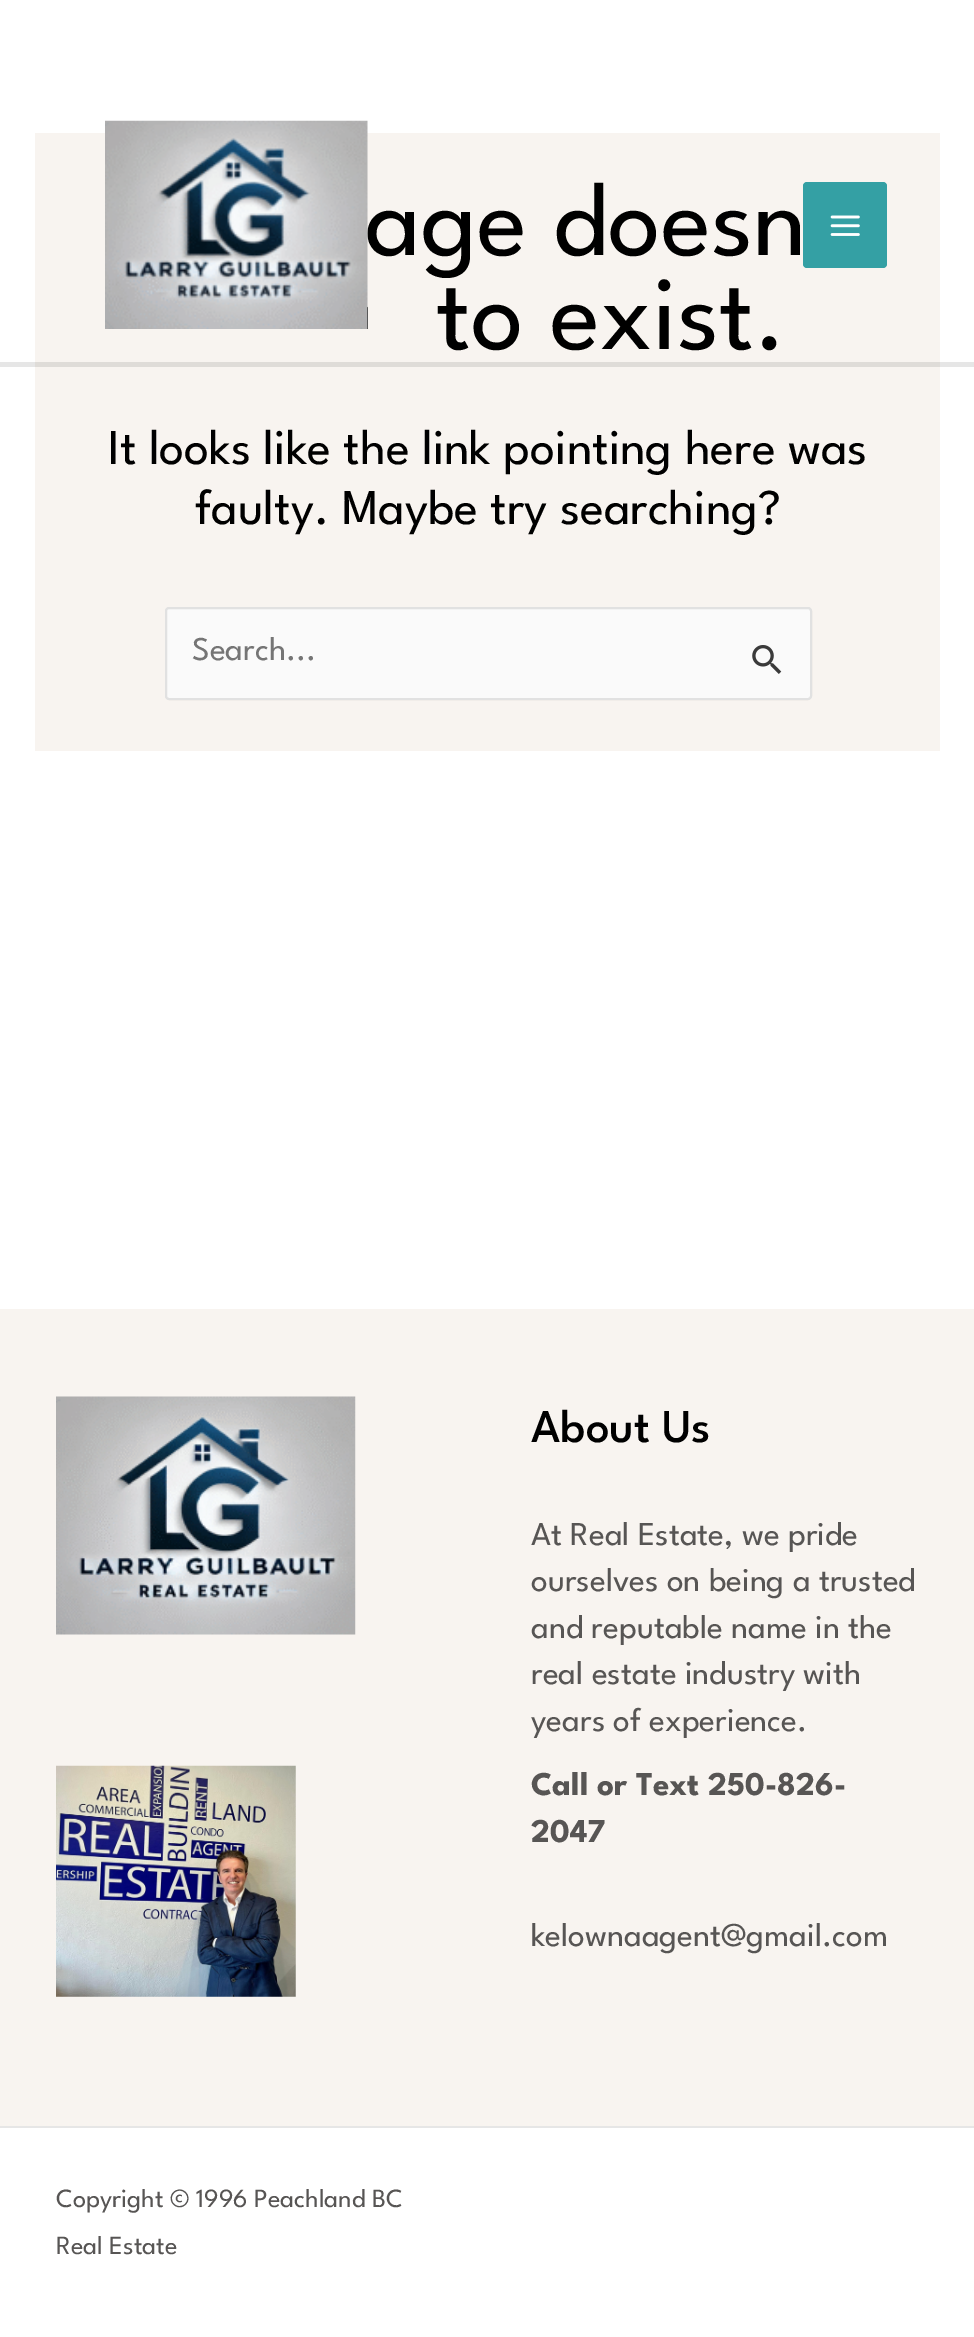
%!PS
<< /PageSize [974 2337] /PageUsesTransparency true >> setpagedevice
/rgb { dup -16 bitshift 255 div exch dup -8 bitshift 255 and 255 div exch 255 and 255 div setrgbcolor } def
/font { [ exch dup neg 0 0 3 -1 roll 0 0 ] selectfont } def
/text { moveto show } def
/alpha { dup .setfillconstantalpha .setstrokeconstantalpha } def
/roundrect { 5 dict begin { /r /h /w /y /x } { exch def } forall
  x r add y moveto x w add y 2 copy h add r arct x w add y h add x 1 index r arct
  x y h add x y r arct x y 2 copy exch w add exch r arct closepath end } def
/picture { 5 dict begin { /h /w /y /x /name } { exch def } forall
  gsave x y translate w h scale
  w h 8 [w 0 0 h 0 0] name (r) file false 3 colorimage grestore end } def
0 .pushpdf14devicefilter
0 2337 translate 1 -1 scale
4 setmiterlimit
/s1 { /LeagueSpartan-Regular 105 font 16#000000 rgb } def
/s2 { /LeagueSpartan-Regular 49.9 font 16#000000 rgb } def
/s3 { /LeagueSpartan-Regular 33.25 font 16#757575 rgb } def
/s4 { /LeagueSpartan-Medium 47 font 16#000000 rgb } def
/s5 { /LeagueSpartan-Regular 33.25 font 16#575554 rgb } def
/s6 { /LeagueSpartan-Bold 33.25 font 16#575554 rgb } def
/s7 { /LeagueSpartan-Regular 26.25 font 16#575554 rgb } def
16#FFFFFF rgb
0 0 974 2337 rectfill
16#E6E6E6 rgb
0 362 974 5 rectfill
16#F8F4F0 rgb
35 133 905 618 rectfill
s1
(age doesn) 365 255 text
(pic1.raw) 105 120 263 209 picture
16#34A0A4 rgb
803 182 84 86 4 roundrect fill
(pic2.raw) 830 215 30 21 picture
16#DFDCD8 rgb
35 362 905 5 rectfill
s1
(to exist.) 436 349 text
s2
(It looks like the link pointing here was) 108 464 text
(faulty. Maybe try searching?) 195 524 text
16#FAFAFA rgb
165 607 647 93 4 roundrect fill
0.1 alpha
16#000000 rgb
2 setlinewidth
166 608 645 91 3 roundrect stroke
1 alpha
s3
(Search...) 192 660 text
(pic3.raw) 752 645 30 29 picture
16#F8F4F0 rgb
0 1309 974 817 rectfill
(pic4.raw) 56 1396 300 239 picture
s4
(About Us) 531 1442 text
s5
(At Real Estate, we pride) 531 1545 text
(ourselves on being a trusted) 531 1591 text
(and reputable name in the) 531 1638 text
(real estate industry with) 531 1684 text
(years of experience.) 531 1731 text
(pic5.raw) 56 1765 240 232 picture
s6
(Call or Text 250-826-) 531 1795 text
(2047) 531 1842 text
s5
(kelownaagent@gmail.com) 531 1946 text
16#E6E6E6 rgb
0 2126 974 2 rectfill
s7
(Copyright © 1996 Peachland BC) 56 2207 text
(Real Estate) 56 2254 text
.poppdf14devicefilter showpage
